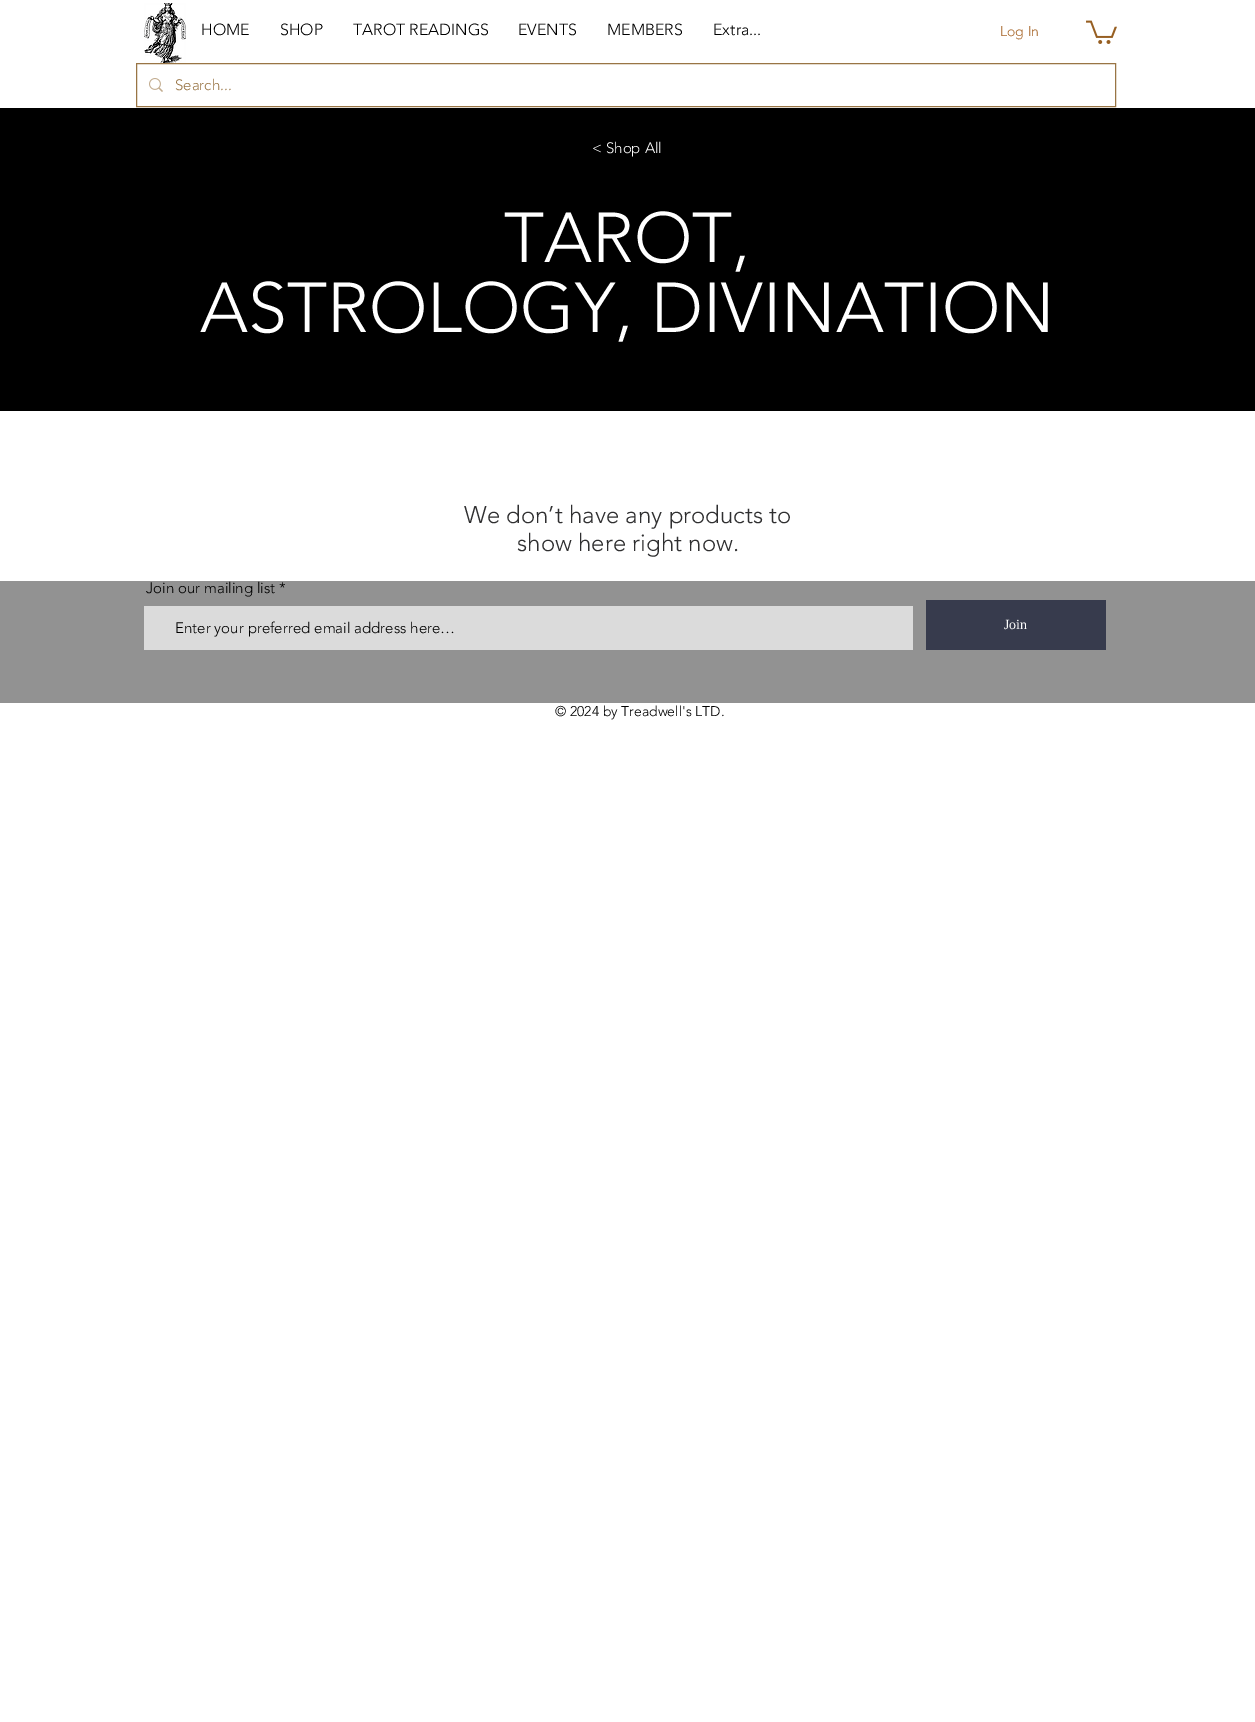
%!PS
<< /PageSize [1255 1722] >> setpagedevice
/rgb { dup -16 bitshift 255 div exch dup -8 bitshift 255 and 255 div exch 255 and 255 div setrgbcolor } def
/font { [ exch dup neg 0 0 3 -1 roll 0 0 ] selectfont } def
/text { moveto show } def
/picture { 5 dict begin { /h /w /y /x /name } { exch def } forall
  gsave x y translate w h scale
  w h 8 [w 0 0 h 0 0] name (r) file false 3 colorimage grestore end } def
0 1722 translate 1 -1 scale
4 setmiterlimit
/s1 { /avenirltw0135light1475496-Light 16 font 16#000000 rgb } def
/s2 { /avenirltw0135light1475496-Light 14 font 16#A76528 rgb } def
/s3 { /avenirltw0135light1475496-Light 15 font 16#997545 rgb } def
/s4 { /avenirltw0135light1475496-Light 15 font 16#FFFFFF rgb } def
/s5 { /avenirltw0135light1475496-Light 70 font 16#FFFFFF rgb } def
/s6 { /avenirltw0135light1475496-Light 24 font 16#2F2F30 rgb } def
/s7 { /avenirltw0135light1475496-Light 15 font 16#000000 rgb } def
/s8 { /LiberationSerif-Regular 14 font 16#FFFFFF rgb } def
/s9 { /avenirltw0135light1475496-Light 14 font 16#000000 rgb } def
16#FFFFFF rgb
0 0 1255 1722 rectfill
(pic1.raw) 144 3 42 60 picture
s1
(HOME) 201 35 text
(SHOP) 280 35 text
(TAROT READINGS) 353 35 text
(EVENTS) 518 35 text
(MEMBERS) 607 35 text
(Extra...) 713 35 text
s2
(Log In) 1000 36 text
(pic2.raw) 1086 20 31 24 picture
16#997545 rgb
136.5 63.5 979 43 rectstroke
(pic3.raw) 149 78 14 14 picture
s3
(Search...) 175 90 text
16#000000 rgb
0 108 1255 303 rectfill
s4
(< Shop All) 592 153 text
s5
(TAROT,) 504 262 text
(ASTROLOGY, DIVINATION) 200 332 text
s6
(We don’t have any products to) 464 523 text
(show here right now.) 517 551 text
16#929292 rgb
0 581 1255 122 rectfill
s7
(Join our mailing list *) 146 593 text
16#DBDBDB rgb
144 606 769 44 rectfill
s7
(Enter your preferred email address here…) 175 633 text
16#373B4D rgb
926 600 180 50 rectfill
s8
(Join) 1004 629 text
s9
(© 2024 by Treadwell's LTD.) 555 716 text
showpage
